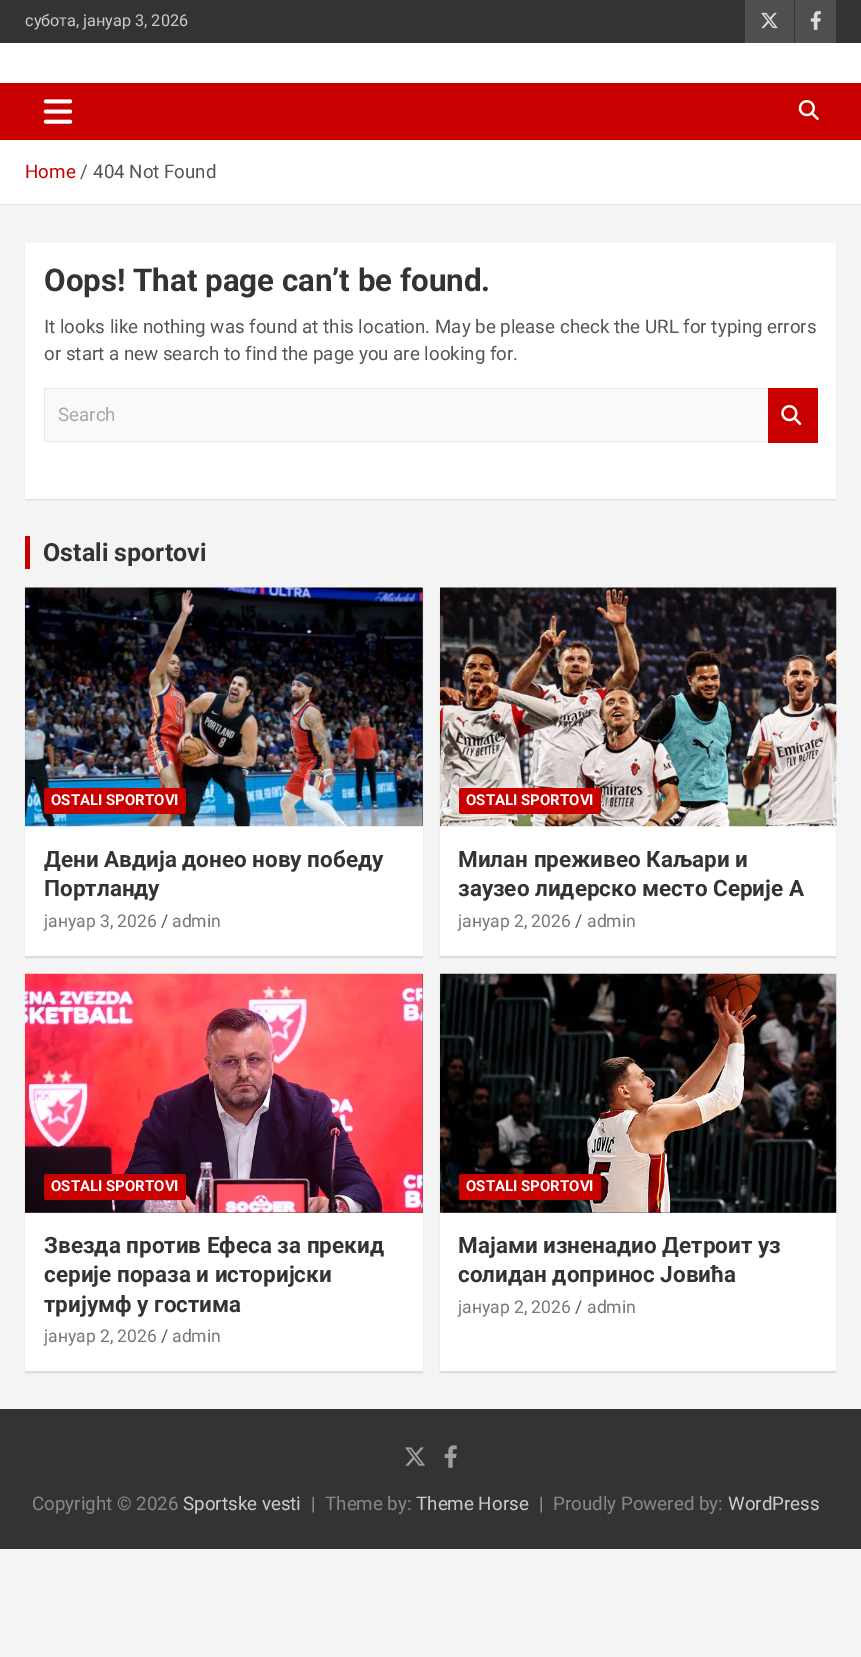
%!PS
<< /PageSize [861 1657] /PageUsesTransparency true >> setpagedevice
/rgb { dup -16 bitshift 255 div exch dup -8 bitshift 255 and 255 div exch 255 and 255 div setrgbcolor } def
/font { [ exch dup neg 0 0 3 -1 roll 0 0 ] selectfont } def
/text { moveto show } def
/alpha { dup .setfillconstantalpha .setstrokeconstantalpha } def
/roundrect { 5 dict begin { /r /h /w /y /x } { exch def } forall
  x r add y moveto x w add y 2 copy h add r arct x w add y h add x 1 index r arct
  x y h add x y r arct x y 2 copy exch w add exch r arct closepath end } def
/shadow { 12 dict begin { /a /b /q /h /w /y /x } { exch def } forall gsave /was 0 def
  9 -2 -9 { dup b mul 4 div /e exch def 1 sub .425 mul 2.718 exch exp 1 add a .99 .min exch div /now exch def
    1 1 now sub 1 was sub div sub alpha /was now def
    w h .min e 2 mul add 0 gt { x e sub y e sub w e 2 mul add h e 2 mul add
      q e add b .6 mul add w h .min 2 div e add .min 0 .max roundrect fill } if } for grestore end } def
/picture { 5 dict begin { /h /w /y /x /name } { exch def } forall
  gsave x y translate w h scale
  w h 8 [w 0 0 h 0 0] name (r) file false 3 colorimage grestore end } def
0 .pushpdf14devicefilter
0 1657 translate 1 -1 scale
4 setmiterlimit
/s1 { /Roboto-Regular 16.25 font 16#CCCCCC rgb } def
/s2 { /Roboto-Regular 18.75 font 16#C80000 rgb } def
/s3 { /Roboto-Regular 18.75 font 16#555555 rgb } def
/s4 { /Roboto-Bold 31.25 font 16#333333 rgb } def
/s5 { /Roboto-Regular 18.75 font 16#A7A7A7 rgb } def
/s6 { /Roboto-Bold 25 font 16#333333 rgb } def
/s7 { /Roboto-Bold 15 font 16#FFFFFF rgb } def
/s8 { /Roboto-Bold 22.5 font 16#333333 rgb } def
/s9 { /Roboto-Regular 17.5 font 16#777777 rgb } def
/s10 { /Roboto-Regular 17.5 font 16#555555 rgb } def
/s11 { /Roboto-Regular 18.75 font 16#888888 rgb } def
/s12 { /Roboto-Regular 18.75 font 16#CCCCCC rgb } def
16#F4F4F4 rgb
0 0 861 1657 rectfill
16#333333 rgb
0 0 861 43 rectfill
s1
(субота, јануар 3, 2026) 25 26 text
16#4F4F4F rgb
745 0 49 43 rectfill
(pic1.raw) 761 12 17 17 picture
795 0 41 43 rectfill
(pic2.raw) 810 11 11 19 picture
16#FFFFFF rgb
0 43 861 40 rectfill
16#C80000 rgb
0 83 861 57 rectfill
(pic3.raw) 43 99 30 25 picture
(pic4.raw) 798 100 21 20 picture
16#FFFFFF rgb
0 140 861 64 rectfill
16#E6E6E6 rgb
0 204 861 1 rectfill
s2
(Home) 25 178 text
s3
(/) 80 178 text
(404 Not Found) 93 178 text
16#000000 rgb
25 244 811 256 0 0.5 0.1 shadow
16#FFFFFF rgb
25 243 811 256 rectfill
s4
(Oops! That page can’t be found.) 44 291 text
s3
(It looks like nothing was found at this location. May be please check the URL for typing errors) 44 333 text
(or start a new search to find the page you are looking for.) 44 360 text
16#F9F9F9 rgb
45 389 723 52 rectfill
16#E8E8E8 rgb
44 388 moveto 768 388 lineto 768 389 lineto 45 389 lineto closepath fill
768 442 moveto 44 442 lineto 45 441 lineto 768 441 lineto closepath fill
0.09 alpha
16#000000 rgb
44 442 moveto 44 388 lineto 45 389 lineto 45 441 lineto closepath fill
1 alpha
s5
(Search) 58 421 text
16#C80000 rgb
768 388 50 55 rectfill
(pic5.raw) 781 405 21 20 picture
25 536 5 33 rectfill
s6
(Ostali sportovi) 43 561 text
16#000000 rgb
25 589 398 369 0 0.5 0.1 shadow
16#FFFFFF rgb
25 826 398 130 rectfill
16#555555 rgb
422 588 1 238 rectfill
(pic6.raw) 25 587 398 240 picture
16#C80000 rgb
44 788 142 26 2.5 roundrect fill
s7
(OSTALI SPORTOVI) 51 805 text
s8
(Дени Авдија донео нову победу) 44 867 text
(Портланду) 44 896 text
s9
(јануар 3, 2026) 44 927 text
s10
(/) 161 927 text
s9
(admin) 172 927 text
16#000000 rgb
440 589 396 369 0 0.5 0.1 shadow
16#FFFFFF rgb
440 826 396 130 rectfill
(pic7.raw) 440 587 397 240 picture
16#C80000 rgb
459 788 142 26 2.5 roundrect fill
s7
(OSTALI SPORTOVI) 466 805 text
s8
(Милан преживео Каљари и) 458 867 text
(заузео лидерско место Серије А) 458 896 text
s9
(јануар 2, 2026) 458 927 text
s10
(/) 575 927 text
s9
(admin) 587 927 text
16#000000 rgb
25 975 398 398 0 0.5 0.1 shadow
16#FFFFFF rgb
25 1213 398 158 rectfill
16#555555 rgb
25 974 398 239 rectfill
(pic8.raw) 25 973 398 240 picture
16#C80000 rgb
44 1174 142 26 2.5 roundrect fill
s7
(OSTALI SPORTOVI) 51 1191 text
s8
(Звезда против Ефеса за прекид) 44 1253 text
(серије пораза и историјски) 44 1282 text
(тријумф у гостима) 44 1312 text
s9
(јануар 2, 2026) 44 1342 text
s10
(/) 161 1342 text
s9
(admin) 172 1342 text
16#000000 rgb
440 975 396 398 0 0.5 0.1 shadow
16#FFFFFF rgb
440 1213 396 158 rectfill
16#555555 rgb
440 1212 396 1 rectfill
(pic9.raw) 440 973 397 240 picture
16#C80000 rgb
459 1174 142 26 2.5 roundrect fill
s7
(OSTALI SPORTOVI) 466 1191 text
s8
(Мајами изненадио Детроит уз) 458 1253 text
(солидан допринос Јовића) 458 1282 text
s9
(јануар 2, 2026) 458 1313 text
s10
(/) 575 1313 text
s9
(admin) 587 1313 text
16#333333 rgb
0 1409 861 140 rectfill
(pic10.raw) 405 1447 20 19 picture
(pic11.raw) 444 1445 13 23 picture
s11
(Copyright © 2026) 32 1510 text
s12
(Sportske vesti) 183 1510 text
s11
(|) 311 1510 text
(Theme by:) 325 1510 text
s12
(Theme Horse) 416 1510 text
s11
(|) 539 1510 text
(Proudly Powered by:) 553 1510 text
s12
(WordPress) 728 1510 text
.poppdf14devicefilter showpage
